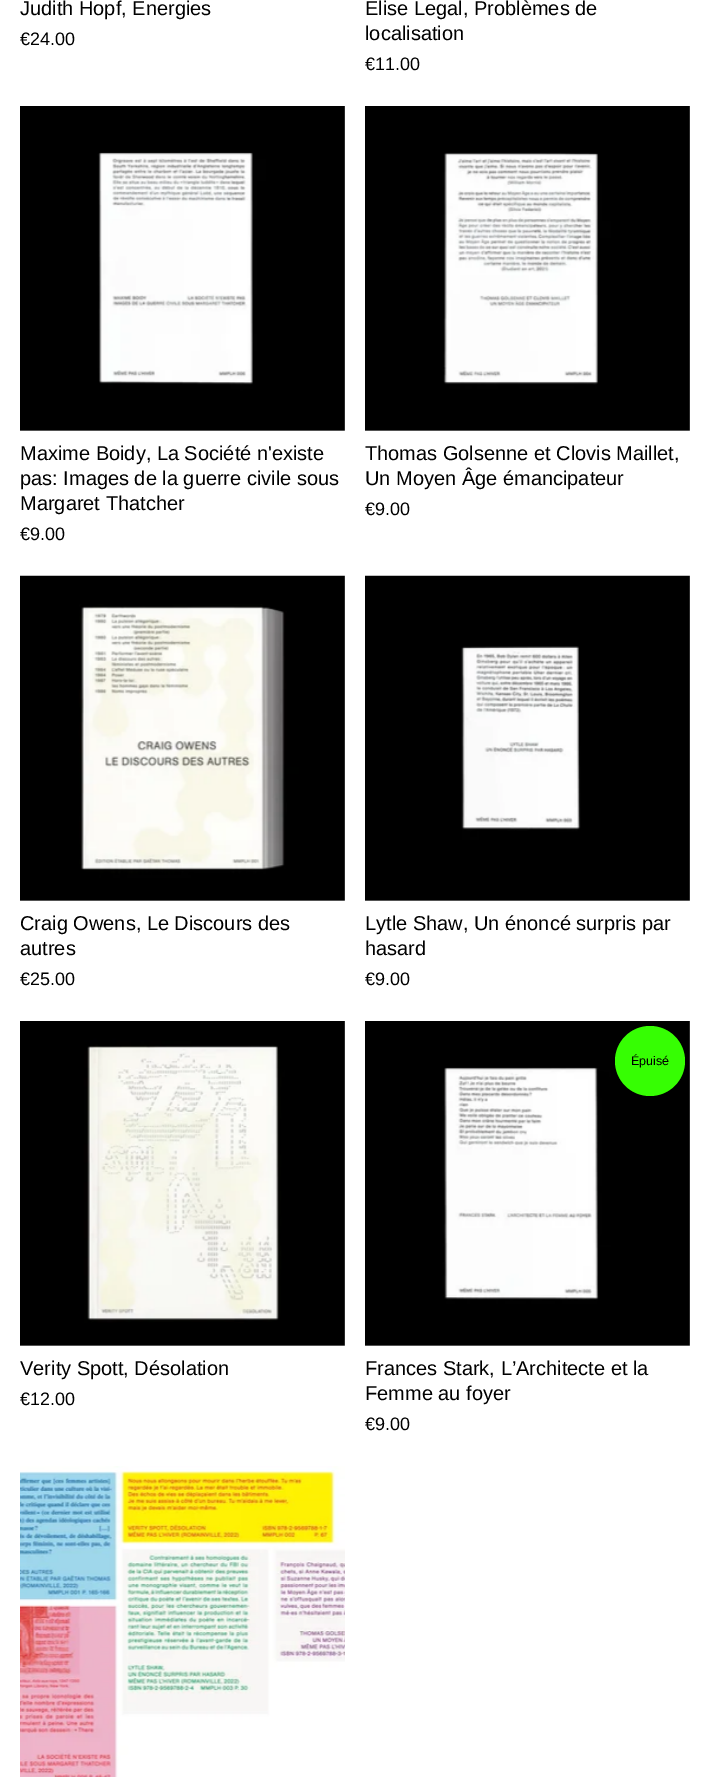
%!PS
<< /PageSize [709 1777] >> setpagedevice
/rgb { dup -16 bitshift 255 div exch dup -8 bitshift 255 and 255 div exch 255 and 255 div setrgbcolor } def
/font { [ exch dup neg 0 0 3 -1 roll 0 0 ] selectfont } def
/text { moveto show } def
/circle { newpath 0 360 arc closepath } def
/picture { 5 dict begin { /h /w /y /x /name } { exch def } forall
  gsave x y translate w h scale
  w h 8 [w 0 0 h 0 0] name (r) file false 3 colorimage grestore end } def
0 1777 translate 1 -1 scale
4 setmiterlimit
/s1 { /LiberationSans-Regular 20 font 16#000000 rgb } def
/s2 { /LiberationSans-Regular 18 font 16#000000 rgb } def
/s3 { /LiberationSans-Regular 12.5 font 16#000000 rgb } def
16#FFFFFF rgb
0 0 709 1777 rectfill
s1
(Judith Hopf, Énergies) 20 15 text
s2
(€24.00) 20 45 text
s1
(Élise Legal, Problèmes de) 365 15 text
(localisation) 365 40 text
s2
(€11.00) 365 70 text
(pic1.raw) 20 106 325 325 picture
s1
(Maxime Boidy, La Société n'existe) 20 460 text
(pas: Images de la guerre civile sous) 20 485 text
(Margaret Thatcher) 20 510 text
s2
(€9.00) 20 540 text
(pic2.raw) 365 106 325 325 picture
s1
(Thomas Golsenne et Clovis Maillet,) 365 460 text
(Un Moyen Âge émancipateur) 365 485 text
s2
(€9.00) 365 515 text
(pic3.raw) 20 575 325 326 picture
s1
(Craig Owens, Le Discours des) 20 930 text
(autres) 20 955 text
s2
(€25.00) 20 985 text
(pic4.raw) 365 575 325 326 picture
s1
(Lytle Shaw, Un énoncé surpris par) 365 930 text
(hasard) 365 955 text
s2
(€9.00) 365 985 text
(pic5.raw) 20 1021 325 325 picture
s1
(Verity Spott, Désolation) 20 1375 text
s2
(€12.00) 20 1405 text
(pic6.raw) 365 1021 325 325 picture
16#36FE03 rgb
650 1061 35 circle fill
s3
(Épuisé) 631 1065 text
s1
(Frances Stark, L’Architecte et la) 365 1375 text
(Femme au foyer) 365 1400 text
s2
(€9.00) 365 1430 text
(pic7.raw) 20 1466 325 311 picture
showpage
